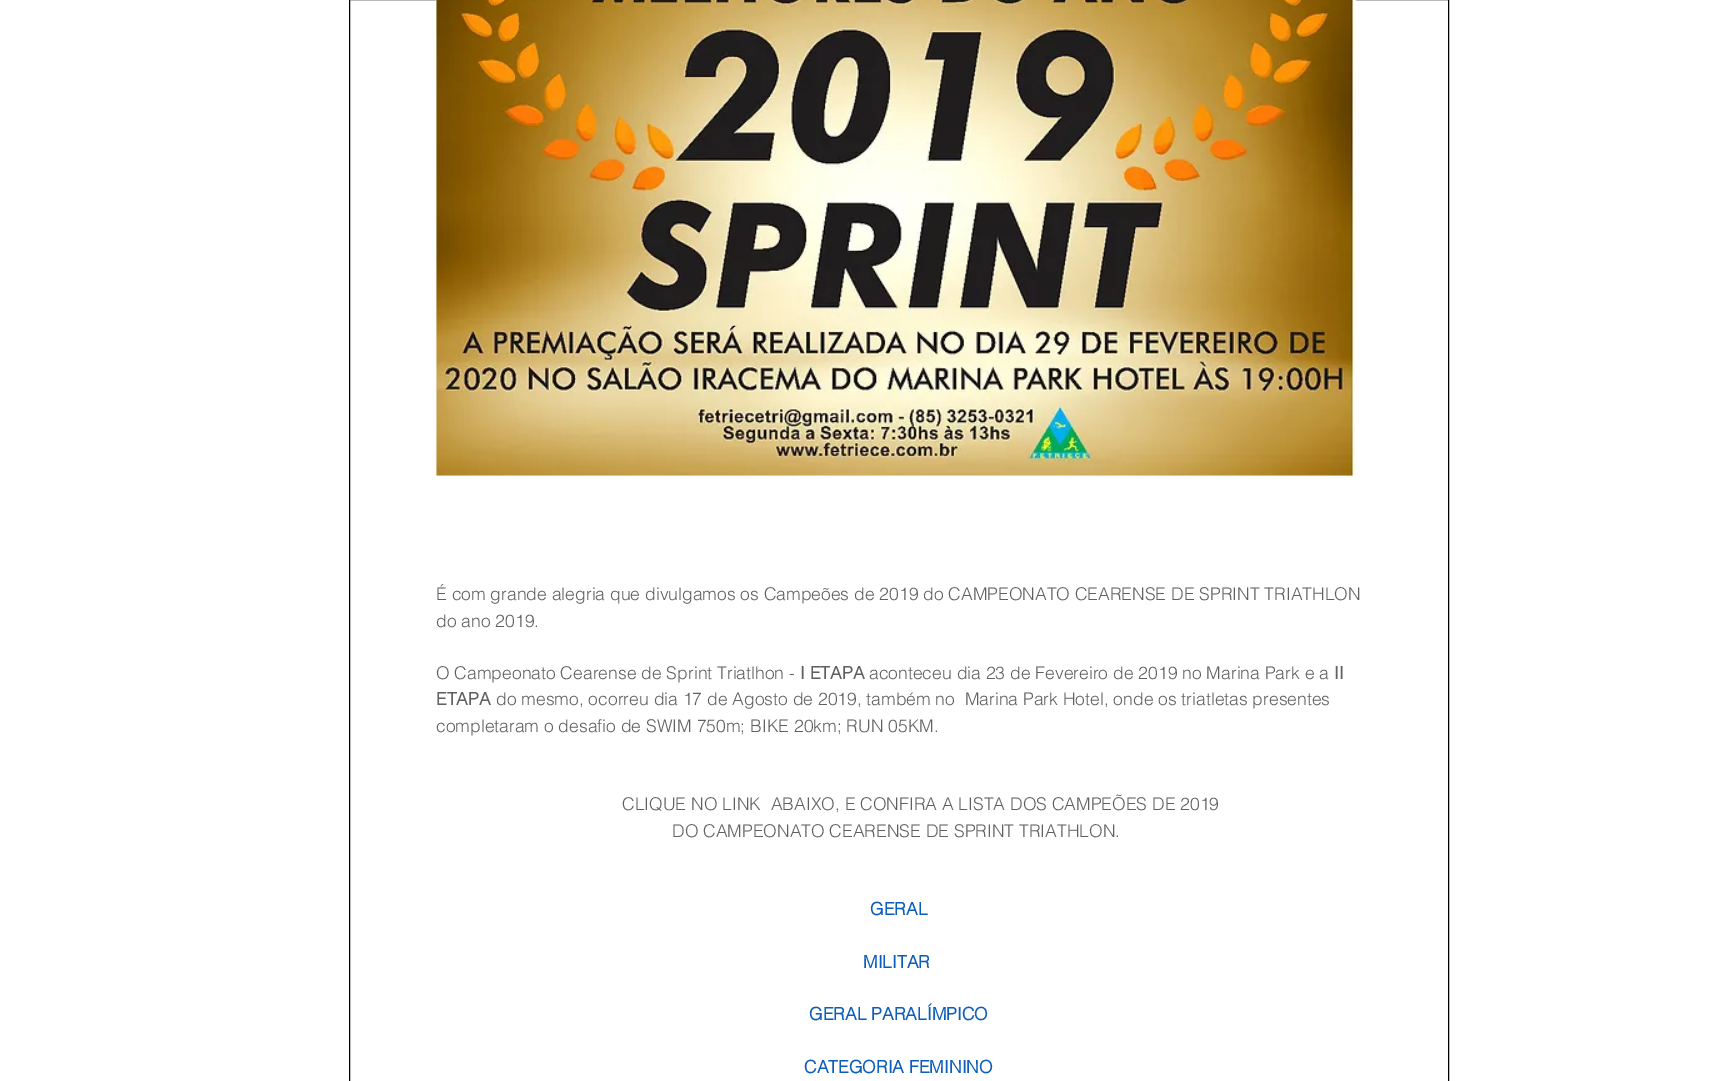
%!PS
<< /PageSize [1722 1081] >> setpagedevice
/rgb { dup -16 bitshift 255 div exch dup -8 bitshift 255 and 255 div exch 255 and 255 div setrgbcolor } def
/font { [ exch dup neg 0 0 3 -1 roll 0 0 ] selectfont } def
/text { moveto show } def
/picture { 5 dict begin { /h /w /y /x /name } { exch def } forall
  gsave x y translate w h scale
  w h 8 [w 0 0 h 0 0] name (r) file false 3 colorimage grestore end } def
0 1081 translate 1 -1 scale
4 setmiterlimit
/s1 { /helvetica-Light 17.5 font 16#606060 rgb } def
/s2 { /helvetica-Bold 17.5 font 16#606060 rgb } def
/s3 { /helvetica-Bold 17.5 font 16#0D5EBA rgb } def
16#FFFFFF rgb
0 0 1722 1081 rectfill
16#000000 rgb
349.5 -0.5 1099 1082 rectstroke
(pic1.raw) 436 0 920 476 picture
s1
(É com grande alegria que divulgamos os Campeões de 2019 do CAMPEONATO CEARENSE DE SPRINT TRIATHLON) 436 600 text
(do ano 2019.) 436 627 text
(O Campeonato Cearense de Sprint Triatlhon -) 436 679 text
s2
(I ETAPA) 800 679 text
s1
(aconteceu dia 23 de Fevereiro de 2019 no Marina Park e a) 869 679 text
s2
(II) 1334 679 text
(ETAPA) 436 705 text
s1
(do mesmo, ocorreu dia 17 de Agosto de 2019, também no  Marina Park Hotel, onde os triatletas presentes) 496 705 text
(completaram o desafio de SWIM 750m; BIKE 20km; RUN 05KM.) 436 732 text
(CLIQUE NO LINK  ABAIXO, E CONFIRA A LISTA DOS CAMPEÕES DE 2019) 622 810 text
(DO CAMPEONATO CEARENSE DE SPRINT TRIATHLON.) 672 837 text
s3
(GERAL) 870 915 text
(MILITAR) 863 968 text
(GERAL PARALÍMPICO) 809 1020 text
(CATEGORIA FEMININO) 804 1073 text
showpage
